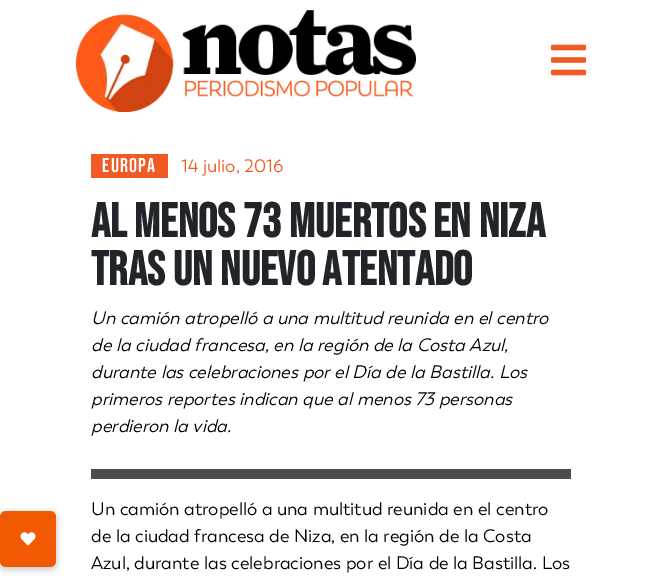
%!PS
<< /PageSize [662 579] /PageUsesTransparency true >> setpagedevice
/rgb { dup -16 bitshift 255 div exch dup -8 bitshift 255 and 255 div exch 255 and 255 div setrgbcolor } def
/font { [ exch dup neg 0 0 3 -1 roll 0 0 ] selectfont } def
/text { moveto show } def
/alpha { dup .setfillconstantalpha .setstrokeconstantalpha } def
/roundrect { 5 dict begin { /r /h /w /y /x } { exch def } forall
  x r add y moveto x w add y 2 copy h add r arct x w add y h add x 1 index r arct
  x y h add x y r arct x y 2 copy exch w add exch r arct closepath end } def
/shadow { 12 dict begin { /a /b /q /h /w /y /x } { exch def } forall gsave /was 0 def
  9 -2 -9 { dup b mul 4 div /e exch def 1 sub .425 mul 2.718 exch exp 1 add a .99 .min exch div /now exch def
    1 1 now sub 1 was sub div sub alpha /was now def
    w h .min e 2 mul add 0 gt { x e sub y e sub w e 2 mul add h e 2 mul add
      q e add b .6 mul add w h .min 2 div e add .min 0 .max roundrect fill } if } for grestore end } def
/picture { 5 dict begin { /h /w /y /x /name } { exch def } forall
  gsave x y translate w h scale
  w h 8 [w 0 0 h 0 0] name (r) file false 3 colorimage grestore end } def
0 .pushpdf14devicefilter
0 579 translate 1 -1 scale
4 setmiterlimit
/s1 { /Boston-Regular 18 font 16#F15A24 rgb } def
/s2 { /BebasNeue-Bold 48 font 16#212529 rgb } def
/s3 { /Boston-Italic 18 font 16#000000 rgb } def
/s4 { /Boston-Regular 18 font 16#000000 rgb } def
16#FFFFFF rgb
0 0 662 579 rectfill
16#000000 rgb
-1 512 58 58 7 3 0.2 shadow
16#F15902 rgb
0 511 56 56 6 roundrect fill
(pic1.raw) 20 532 16 14 picture
(pic2.raw) 76 10 340 102 picture
(pic3.raw) 551 44 35 32 picture
16#F15A24 rgb
91 154 77 24 rectfill
/BebasNeue-Regular 20 font
16#FFFFFF rgb
102 172 moveto 1.25 0 (EUROPA) ashow
s1
(14 julio, 2016) 181 172 text
s2
(Al menos 73 muertos en Niza) 91 237 text
(tras un nuevo atentado) 91 285 text
s3
(Un camión atropelló a una multitud reunida en el centro) 91 324 text
(de la ciudad francesa, en la región de la Costa Azul,) 91 351 text
(durante las celebraciones por el Día de la Bastilla. Los) 91 378 text
(primeros reportes indican que al menos 73 personas) 91 405 text
(perdieron la vida.) 91 432 text
16#4D4D4D rgb
91 469 480 10 rectfill
s4
(Un camión atropelló a una multitud reunida en el centro) 91 515 text
(de la ciudad francesa de Niza, en la región de la Costa) 91 542 text
(Azul, durante las celebraciones por el Día de la Bastilla. Los) 91 569 text
.poppdf14devicefilter showpage
